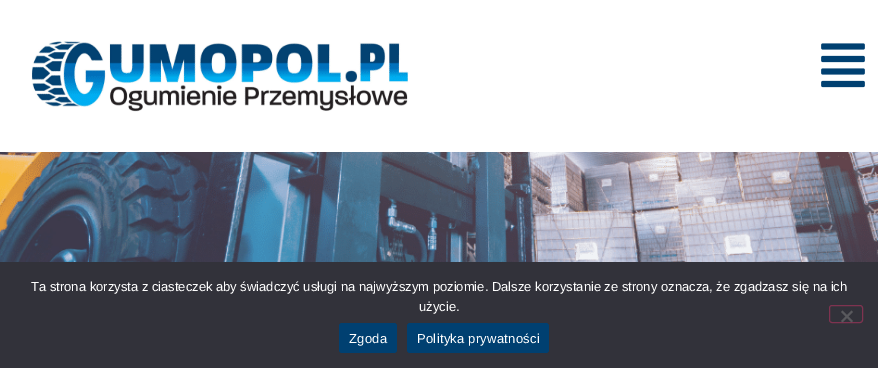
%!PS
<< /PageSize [878 368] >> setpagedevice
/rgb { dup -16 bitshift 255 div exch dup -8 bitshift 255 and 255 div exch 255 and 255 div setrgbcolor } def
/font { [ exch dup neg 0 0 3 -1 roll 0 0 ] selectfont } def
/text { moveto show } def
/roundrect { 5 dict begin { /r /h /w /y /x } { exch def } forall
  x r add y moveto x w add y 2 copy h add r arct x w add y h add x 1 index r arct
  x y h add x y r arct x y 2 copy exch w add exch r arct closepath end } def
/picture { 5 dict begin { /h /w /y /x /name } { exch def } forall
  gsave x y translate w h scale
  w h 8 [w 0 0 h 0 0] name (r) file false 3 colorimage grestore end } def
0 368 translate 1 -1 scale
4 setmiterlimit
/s1 { /LiberationSans-Regular 13 font 16#FFFFFF rgb } def
16#FFFFFF rgb
0 0 878 368 rectfill
(pic1.raw) 31 41 378 71 picture
(pic2.raw) 821 43 44 45 picture
(pic3.raw) 0 152 878 110 picture
16#32323A rgb
0 262 878 106 rectfill
s1
(Ta strona korzysta z ciasteczek aby świadczyć usługi na najwyższym poziomie. Dalsze korzystanie ze strony oznacza, że zgadzasz się na ich) 31 291 text
(użycie.) 419 311 text
16#7F3350 rgb
829.5 305.5 33 17 2.5 roundrect stroke
16#59595D rgb
851.5 310.5 moveto 853 312 lineto 842.5 322.5 lineto 841 321 lineto closepath fill
841 312 moveto 842.5 310.5 lineto 853 321 lineto 851.5 322.5 lineto closepath fill
16#004071 rgb
339 323 58 30 3 roundrect fill
16#FFFFFF rgb
349 343 moveto 0.25 0 (Zgoda) ashow
16#004071 rgb
407 323 142 30 3 roundrect fill
16#FFFFFF rgb
417 343 moveto 0.25 0 (Polityka prywatności) ashow
showpage
